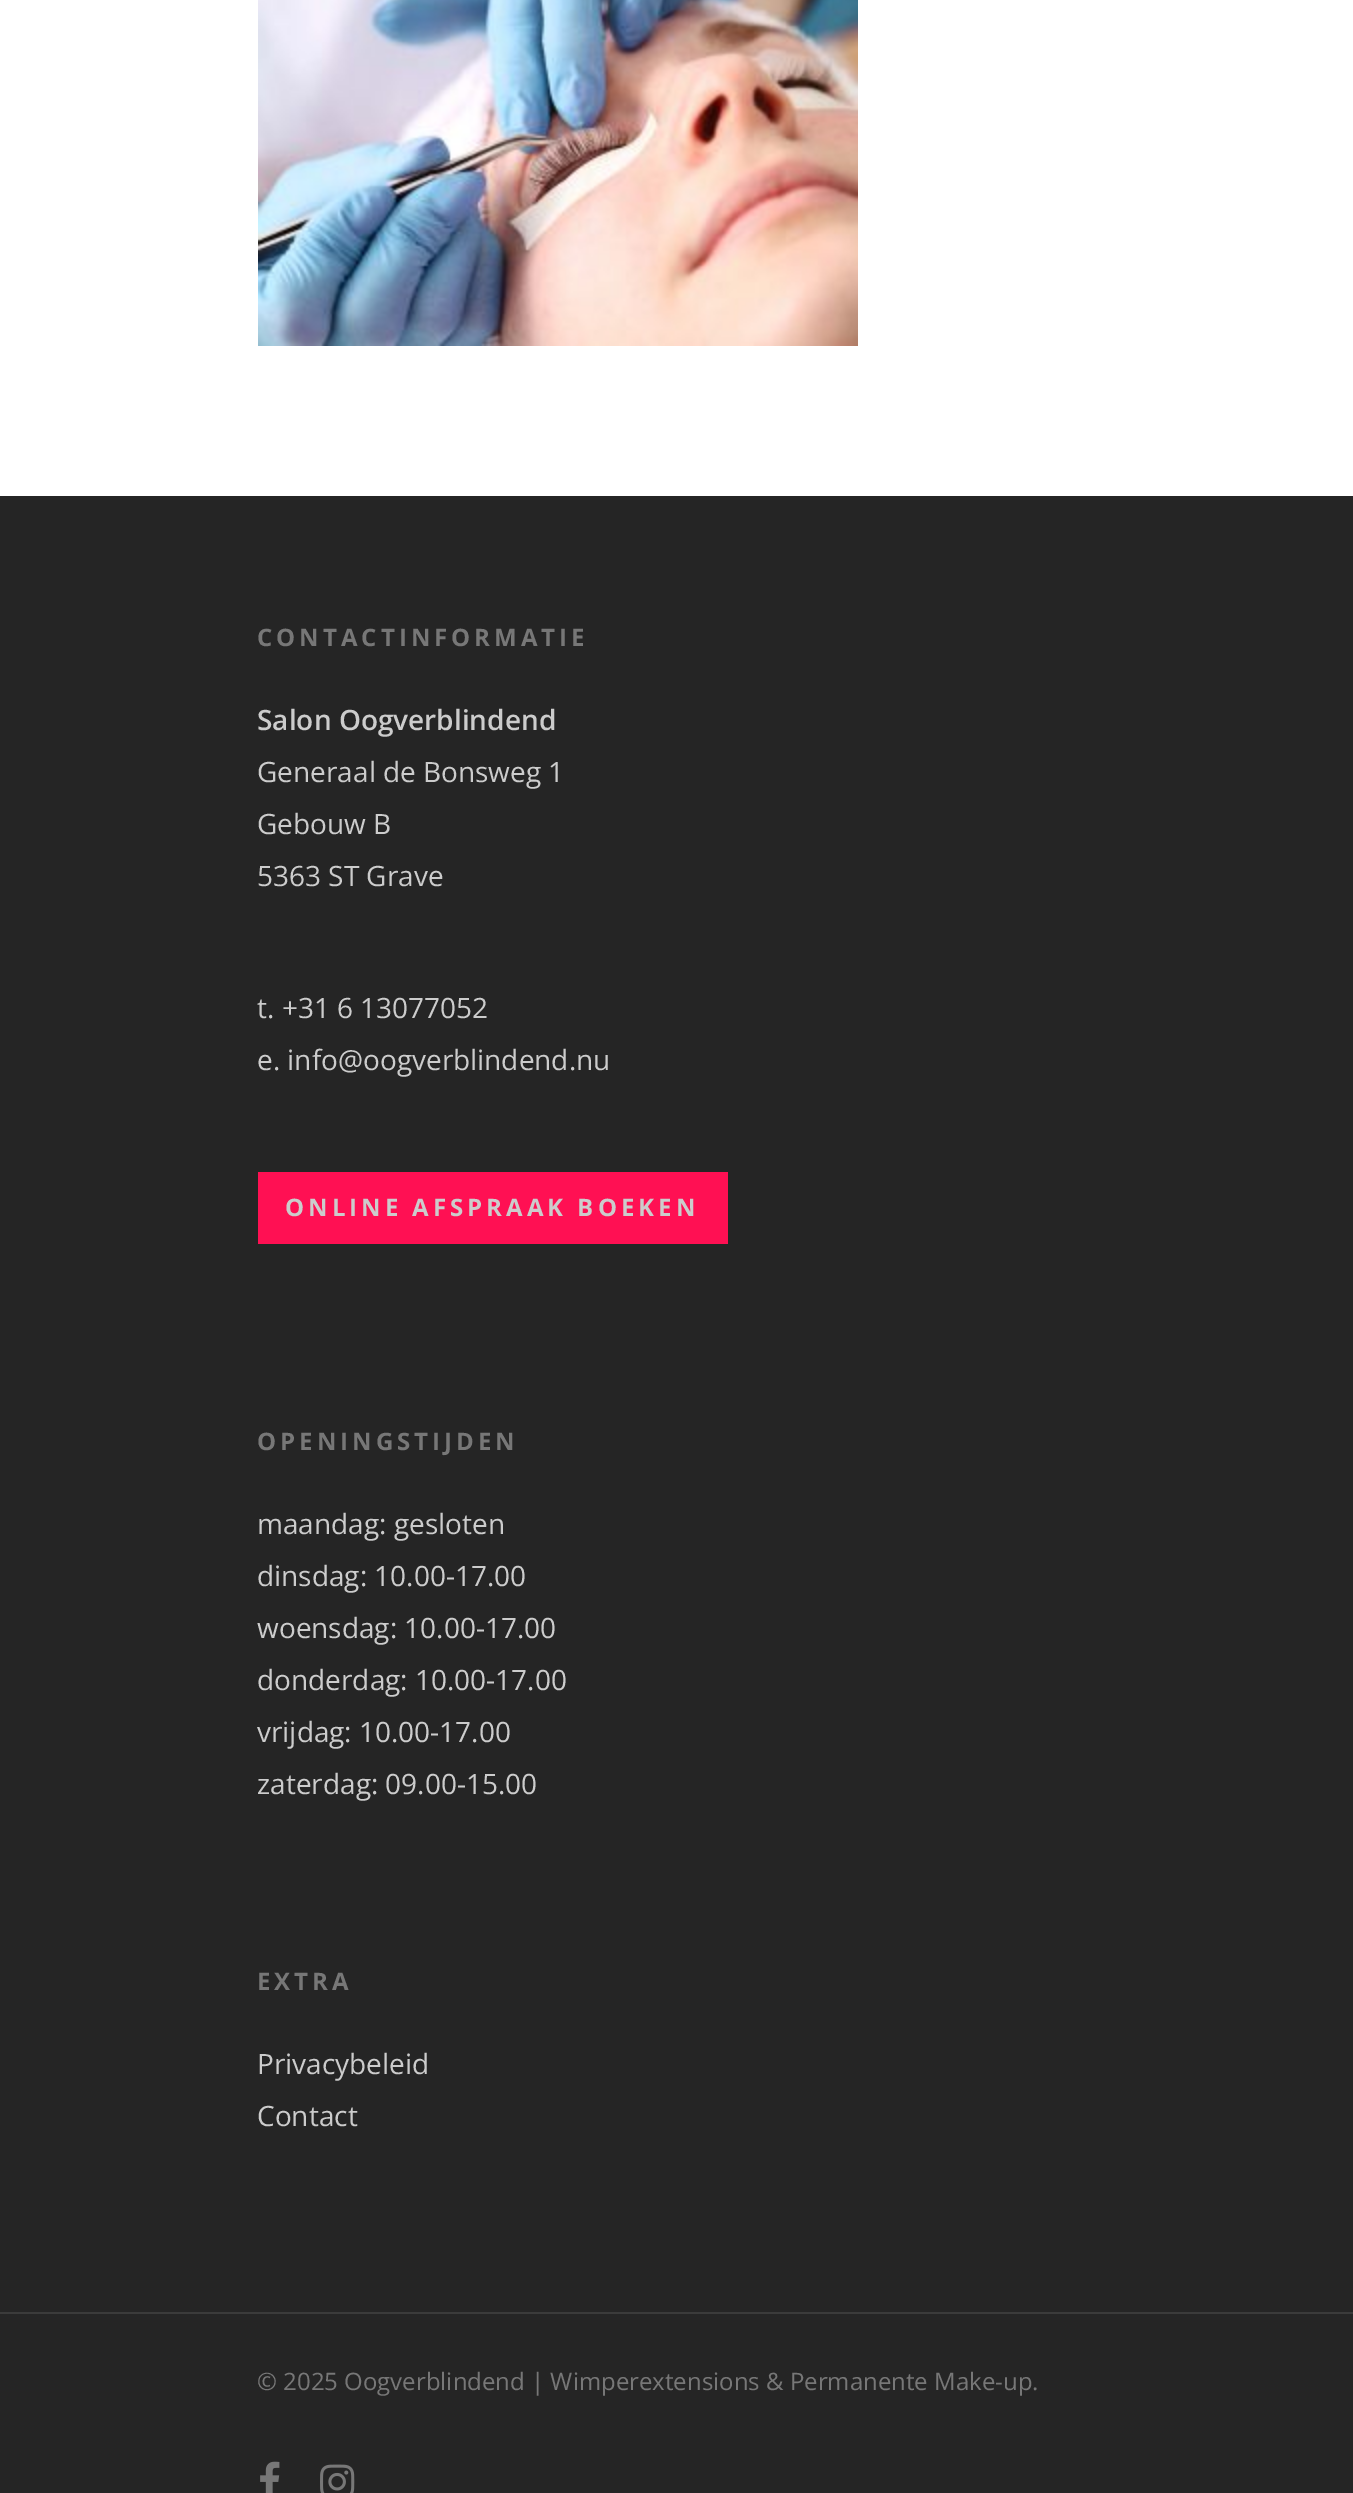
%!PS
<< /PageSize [1353 2493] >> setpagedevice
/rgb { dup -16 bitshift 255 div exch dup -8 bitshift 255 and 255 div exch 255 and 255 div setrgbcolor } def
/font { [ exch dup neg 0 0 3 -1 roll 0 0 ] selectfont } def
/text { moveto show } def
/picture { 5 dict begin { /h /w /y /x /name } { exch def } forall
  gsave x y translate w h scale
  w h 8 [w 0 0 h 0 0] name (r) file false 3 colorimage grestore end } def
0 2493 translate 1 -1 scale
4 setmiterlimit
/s1 { /OpenSans-SemiBold 28 font 16#CCCCCC rgb } def
/s2 { /OpenSans-Regular 28 font 16#CCCCCC rgb } def
/s3 { /OpenSans-Regular 24 font 16#777777 rgb } def
16#252525 rgb
0 0 1353 2493 rectfill
16#FFFFFF rgb
0 0 1353 496 rectfill
(pic1.raw) 258 0 600 346 picture
/OpenSans-Bold 24 font
16#777777 rgb
257 646 moveto 4 0 (CONTACTINFORMATIE) ashow
s1
(Salon Oogverblindend) 257 730 text
s2
(Generaal de Bonsweg 1) 257 782 text
(Gebouw B) 257 834 text
(5363 ST Grave) 257 886 text
(t. +31 6 13077052) 257 1018 text
(e. info@oogverblindend.nu) 257 1070 text
16#FF1053 rgb
258 1172 470 72 rectfill
/OpenSans-Bold 24 font
16#CCCCCC rgb
285 1216 moveto 4 0 (ONLINE AFSPRAAK BOEKEN) ashow
16#777777 rgb
257 1450 moveto 4 0 (OPENINGSTIJDEN) ashow
s2
(maandag: gesloten) 257 1534 text
(dinsdag: 10.00-17.00) 257 1586 text
(woensdag: 10.00-17.00) 257 1638 text
(donderdag: 10.00-17.00) 257 1690 text
(vrijdag: 10.00-17.00) 257 1742 text
(zaterdag: 09.00-15.00) 257 1794 text
/OpenSans-Bold 24 font
16#777777 rgb
257 1990 moveto 4 0 (EXTRA) ashow
s2
(Privacybeleid) 257 2074 text
(Contact) 257 2126 text
16#3B3B3B rgb
0 2312 1353 2 rectfill
s3
(© 2025 Oogverblindend | Wimperextensions & Permanente Make-up.) 257 2390 text
(pic2.raw) 260 2461 20 32 picture
(pic3.raw) 320 2464 35 29 picture
showpage
